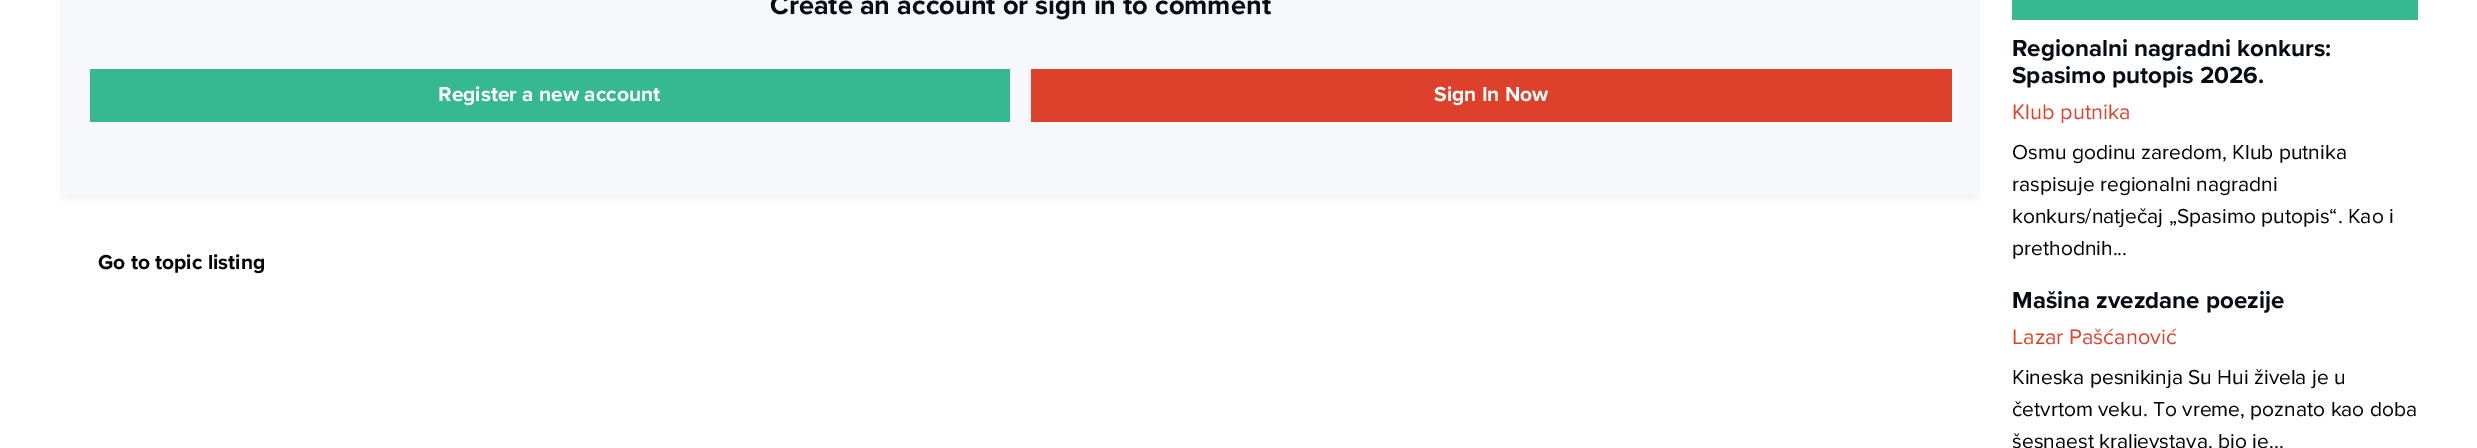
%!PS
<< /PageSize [2477 448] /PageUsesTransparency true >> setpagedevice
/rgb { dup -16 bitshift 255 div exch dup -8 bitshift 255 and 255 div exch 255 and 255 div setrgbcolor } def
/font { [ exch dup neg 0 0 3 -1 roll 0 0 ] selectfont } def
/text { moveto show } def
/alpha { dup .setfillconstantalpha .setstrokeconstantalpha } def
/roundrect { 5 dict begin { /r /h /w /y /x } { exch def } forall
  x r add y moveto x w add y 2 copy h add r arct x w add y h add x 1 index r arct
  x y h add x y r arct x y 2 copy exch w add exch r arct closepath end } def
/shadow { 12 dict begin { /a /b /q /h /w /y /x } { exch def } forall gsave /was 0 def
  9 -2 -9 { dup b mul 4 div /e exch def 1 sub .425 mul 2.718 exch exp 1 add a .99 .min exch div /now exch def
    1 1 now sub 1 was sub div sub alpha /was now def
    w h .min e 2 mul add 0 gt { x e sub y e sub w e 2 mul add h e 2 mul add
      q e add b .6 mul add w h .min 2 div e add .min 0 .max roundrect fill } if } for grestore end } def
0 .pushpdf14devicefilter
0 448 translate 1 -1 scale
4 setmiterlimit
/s1 { /ProximaNova-Bold 27.25 font 16#060B14 rgb } def
/s2 { /ProximaNova-Bold 21 font 16#FFFFFF rgb } def
/s3 { /ProximaNova-Bold 21 font 16#020305 rgb } def
/s4 { /ProximaNova-Bold 24.1 font 16#060B14 rgb } def
/s5 { /ProximaNova-Regular 21.75 font 16#DD412C rgb } def
/s6 { /ProximaNova-Regular 21 font 16#020305 rgb } def
16#FFFFFF rgb
0 0 2477 448 rectfill
16#01030A rgb
65 -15 1911 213 0 5 0.05 shadow
16#F7F8FB rgb
60 0 1920 194 rectfill
s1
(Create an account or sign in to comment) 770 14 text
16#37B990 rgb
90 69 920 53 rectfill
s2
(Register a new account) 438 101 text
16#DD412C rgb
1031 69 921 53 rectfill
s2
(Sign In Now) 1434 101 text
s3
(Go to topic listing) 98 269 text
16#37B990 rgb
2012 0 406 20 rectfill
s4
(Regionalni nagradni konkurs:) 2012 56 text
(Spasimo putopis 2026.) 2012 83 text
s5
(Klub putnika) 2012 119 text
s6
(Osmu godinu zaredom, Klub putnika) 2012 159 text
(raspisuje regionalni nagradni) 2012 191 text
(konkurs/natječaj „Spasimo putopis“. Kao i) 2012 223 text
(prethodnih...) 2012 255 text
s4
(Mašina zvezdane poezije) 2012 308 text
s5
(Lazar Pašćanović) 2012 344 text
s6
(Kineska pesnikinja Su Hui živela je u) 2012 384 text
(četvrtom veku. To vreme, poznato kao doba) 2012 416 text
(šesnaest kraljevstava, bio je...) 2012 448 text
.poppdf14devicefilter showpage
